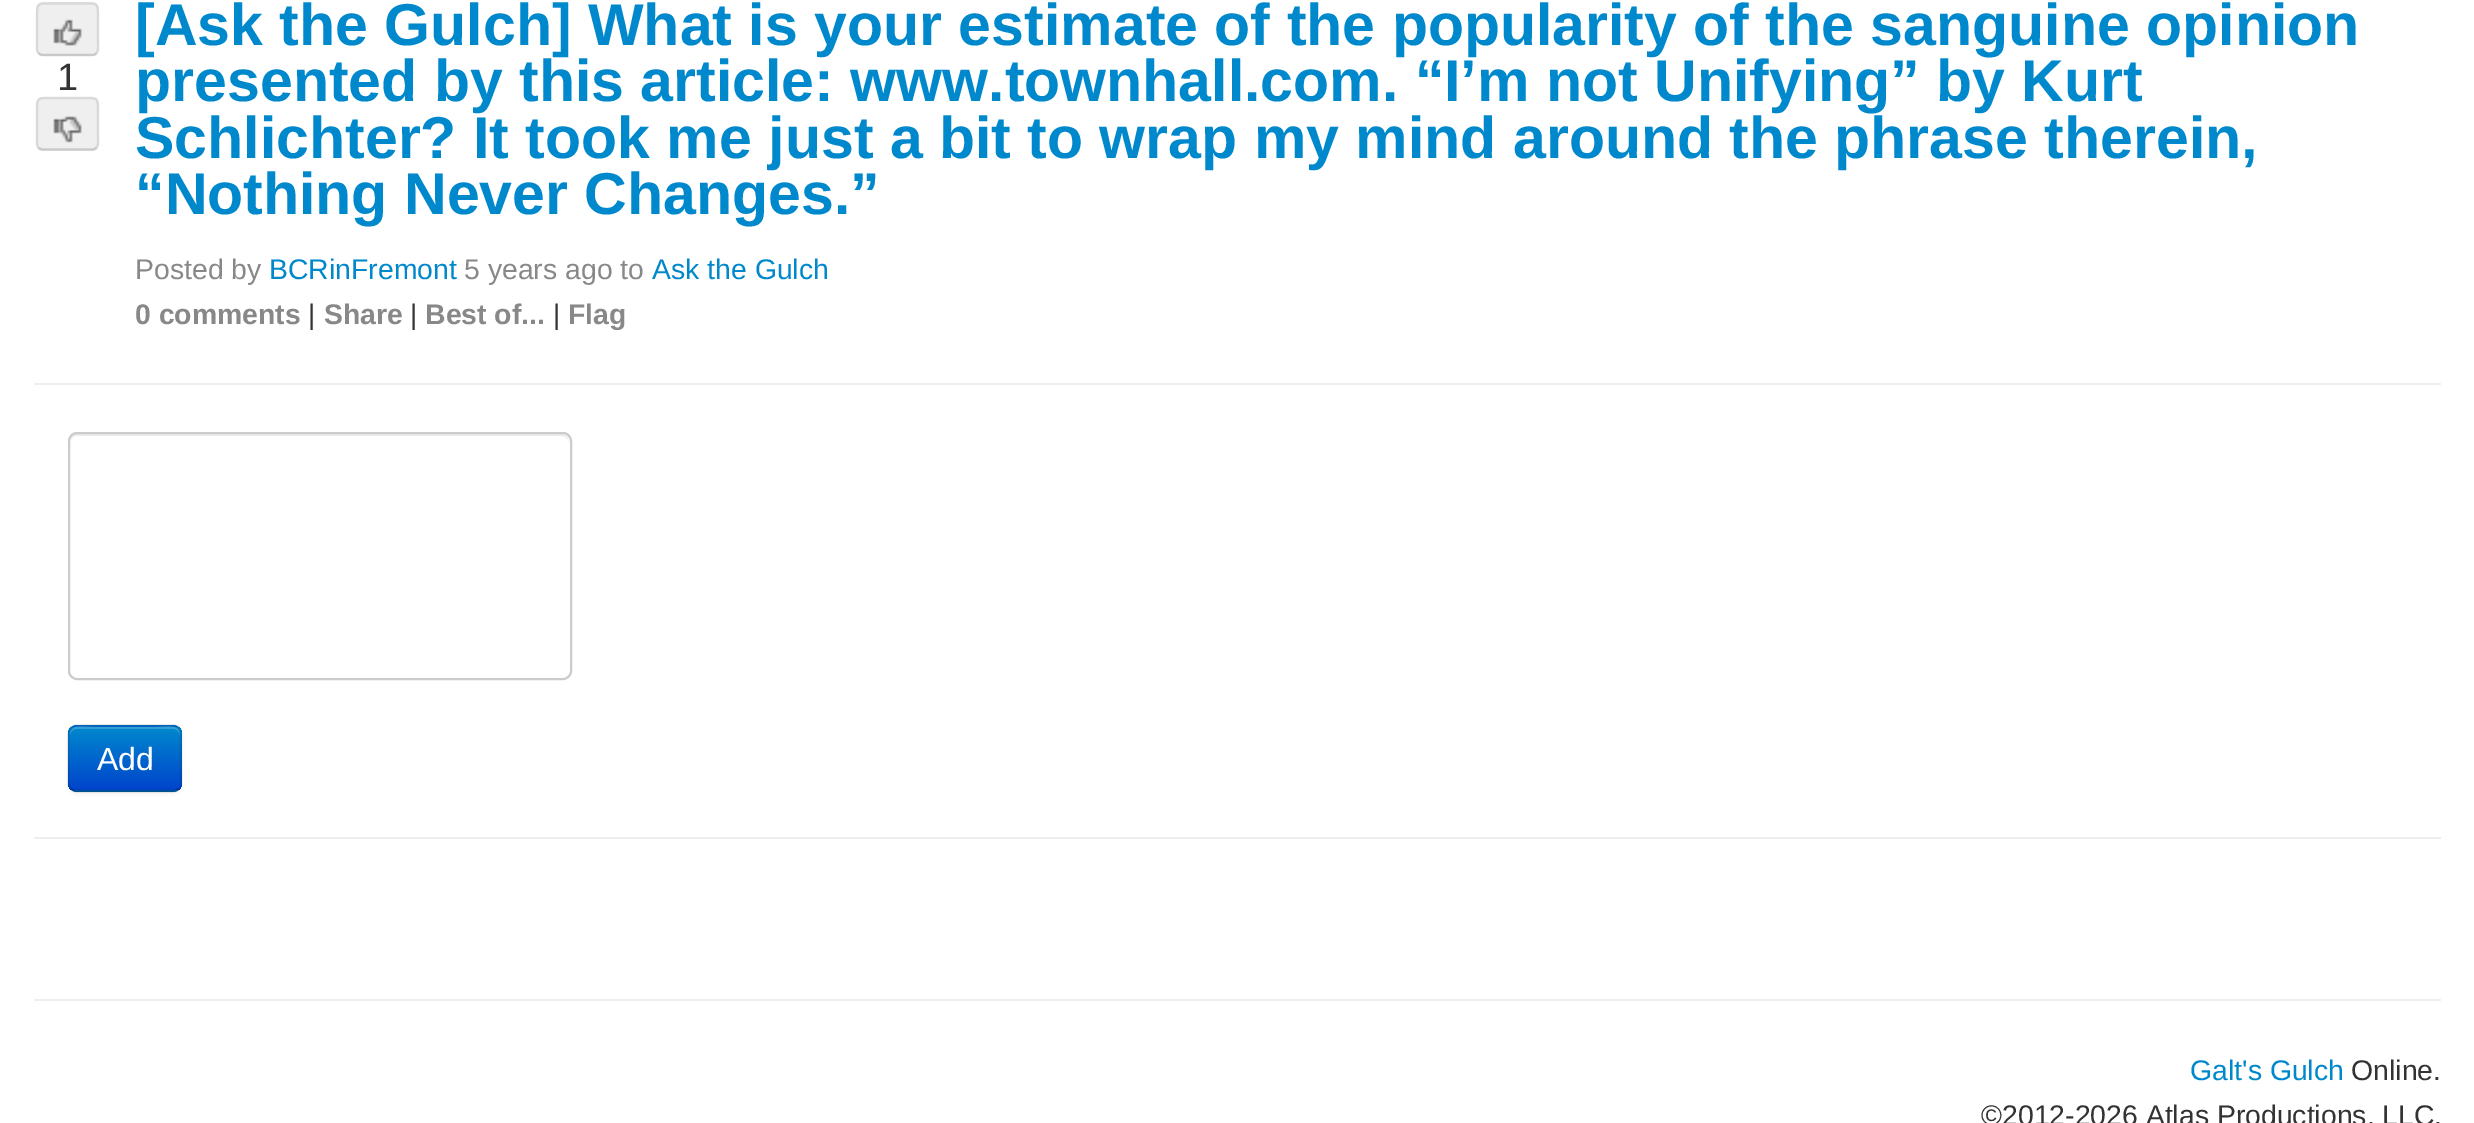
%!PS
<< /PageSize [2474 1123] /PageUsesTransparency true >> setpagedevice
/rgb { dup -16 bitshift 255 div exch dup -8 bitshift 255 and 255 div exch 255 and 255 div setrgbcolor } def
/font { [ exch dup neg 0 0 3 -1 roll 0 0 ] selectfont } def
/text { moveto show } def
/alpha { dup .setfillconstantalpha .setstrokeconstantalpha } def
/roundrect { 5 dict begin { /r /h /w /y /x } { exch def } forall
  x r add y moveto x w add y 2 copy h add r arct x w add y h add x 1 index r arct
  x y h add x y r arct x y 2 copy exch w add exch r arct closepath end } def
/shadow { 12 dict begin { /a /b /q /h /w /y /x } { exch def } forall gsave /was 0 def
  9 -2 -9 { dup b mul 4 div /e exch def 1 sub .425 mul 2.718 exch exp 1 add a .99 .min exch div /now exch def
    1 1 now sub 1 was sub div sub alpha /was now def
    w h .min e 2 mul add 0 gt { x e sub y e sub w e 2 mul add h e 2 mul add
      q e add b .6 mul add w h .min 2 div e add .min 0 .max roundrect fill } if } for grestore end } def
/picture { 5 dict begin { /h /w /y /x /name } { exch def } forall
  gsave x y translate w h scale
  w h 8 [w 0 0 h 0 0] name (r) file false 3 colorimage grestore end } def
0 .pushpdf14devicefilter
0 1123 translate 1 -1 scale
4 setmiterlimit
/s1 { /LiberationSans-Regular 38 font 16#333333 rgb } def
/s2 { /LiberationSans-Bold 59.05 font 16#0088CC rgb } def
/s3 { /LiberationSans-Regular 28.4 font 16#888888 rgb } def
/s4 { /LiberationSans-Regular 28.4 font 16#0088CC rgb } def
/s5 { /LiberationSans-Bold 28.4 font 16#888888 rgb } def
/s6 { /LiberationSans-Regular 28.4 font 16#333333 rgb } def
/s7 { /LiberationSans-Regular 32 font 16#FFFFFF rgb } def
16#FFFFFF rgb
0 0 2474 1123 rectfill
16#EFEFEF rgb
36 2 63 54 7 roundrect fill
0.25 alpha
16#595959 rgb
2.2 setlinewidth
96 53.5 moveto 95 54.5 93.5 55 92 55 curveto 43 55 lineto 41.5 55 40 54.5 39 53.5 curveto stroke
0.15 alpha
39 53.5 moveto 36 51 37 46 37 43 curveto 37 16 lineto 37 2.5 38 3.5 51 3.5 curveto 84 3.5 lineto 97 3.5 98 2.5 98 15.5 curveto 98 43 lineto 98 46 99 51 96 53.5 curveto stroke
1 alpha
(pic1.raw) 53 19 29 27 picture
s1
(1) 57 90 text
16#EFEFEF rgb
36 97 63 54 7 roundrect fill
16#CACACA rgb
96 148 moveto 95 149 93.5 149.5 92 149.5 curveto 43 149.5 lineto 41.5 149.5 40 149 39 148 curveto stroke
0.15 alpha
16#595959 rgb
39 148 moveto 36 145.5 37 140.5 37 137 curveto 37 110 lineto 37 97 38 98 51 98 curveto 84 98 lineto 97 98 98 97 98 110 curveto 98 137 lineto 98 140.5 99 145.5 96 148 curveto stroke
1 alpha
(pic2.raw) 53 116 29 27 picture
s2
([Ask the Gulch] What is your estimate of the popularity of the sanguine opinion) 135 45 text
(presented by this article: www.townhall.com. “I’m not Unifying” by Kurt) 135 101 text
(Schlichter? It took me just a bit to wrap my mind around the phrase therein,) 135 158 text
(“Nothing Never Changes.”) 135 214 text
s3
(Posted by) 135 279 text
s4
(BCRinFremont) 269 279 text
s3
(5 years ago to) 464 279 text
s4
(Ask the Gulch) 652 279 text
s5
(0 comments) 135 324 text
s6
(|) 308 324 text
s5
(Share) 324 324 text
s6
(|) 410 324 text
s5
(Best of...) 425 324 text
s6
(|) 553 324 text
s5
(Flag) 568 324 text
16#EEEEEE rgb
34 383 2407 2 rectfill
16#ECECEC rgb
76 436 moveto 562 436 lineto 566 436 569 440 569 443 curveto 569 439 567 434 562 434 curveto 77 434 lineto 72 434 70 439 70 443 curveto 70 440 73 436 76 436 curveto closepath fill
16#CCCCCC rgb
2 setlinewidth
69 433 502 246 8 roundrect stroke
16#000000 rgb
68 727 114 67 9 2 0.05 shadow
16#006DCC rgb
68 725 114 67 9 roundrect fill
gsave
68 725 114 67 9 roundrect clip newpath
gsave 68 727 moveto 182 727 lineto 182 790 lineto 68 790 lineto closepath clip newpath
<< /ShadingType 2 /ColorSpace /DeviceRGB /Coords [125 727 125 790] /Extend [true true] /Function << /FunctionType 2 /Domain [0 1] /C0 [0 0.533 0.8] /C1 [0 0.267 0.8] /N 1 >> >> shfill grestore
grestore
0.2 alpha
16#FFFFFF rgb
76 729 moveto 173 729 lineto 177 729 180 732 180 736 curveto 180 723 167 727 157 727 curveto 93 727 lineto 83 727 70 723 70 736 curveto 70 732 73 729 76 729 curveto closepath fill
0.25 alpha
16#000000 rgb
2.2 setlinewidth
179 788.5 moveto 177.5 790 175.5 791 173 791 curveto 76.5 791 lineto 74.5 791 72.5 790 71 788.5 curveto stroke
0.1 alpha
71 788.5 moveto 69.5 787 68.5 785 68.5 783 curveto 68.5 733.5 lineto 68.5 731.5 69.5 729.5 71 728 curveto 72.5 726.5 74.5 725.5 76.5 725.5 curveto 173 725.5 lineto 175.5 725.5 177.5 726.5 179 728 curveto 180.5 729.5 181 731.5 181 733.5 curveto 181 783 lineto 181 785 180.5 787 179 788.5 curveto stroke
1 alpha
s7
(Add) 97 770 text
16#EEEEEE rgb
34 837 2407 2 rectfill
34 999 2407 2 rectfill
s4
(Galt's Gulch) 2190 1080 text
s6
(Online.) 2351 1080 text
(©2012-2026 Atlas Productions, LLC.) 1981 1125 text
.poppdf14devicefilter showpage
